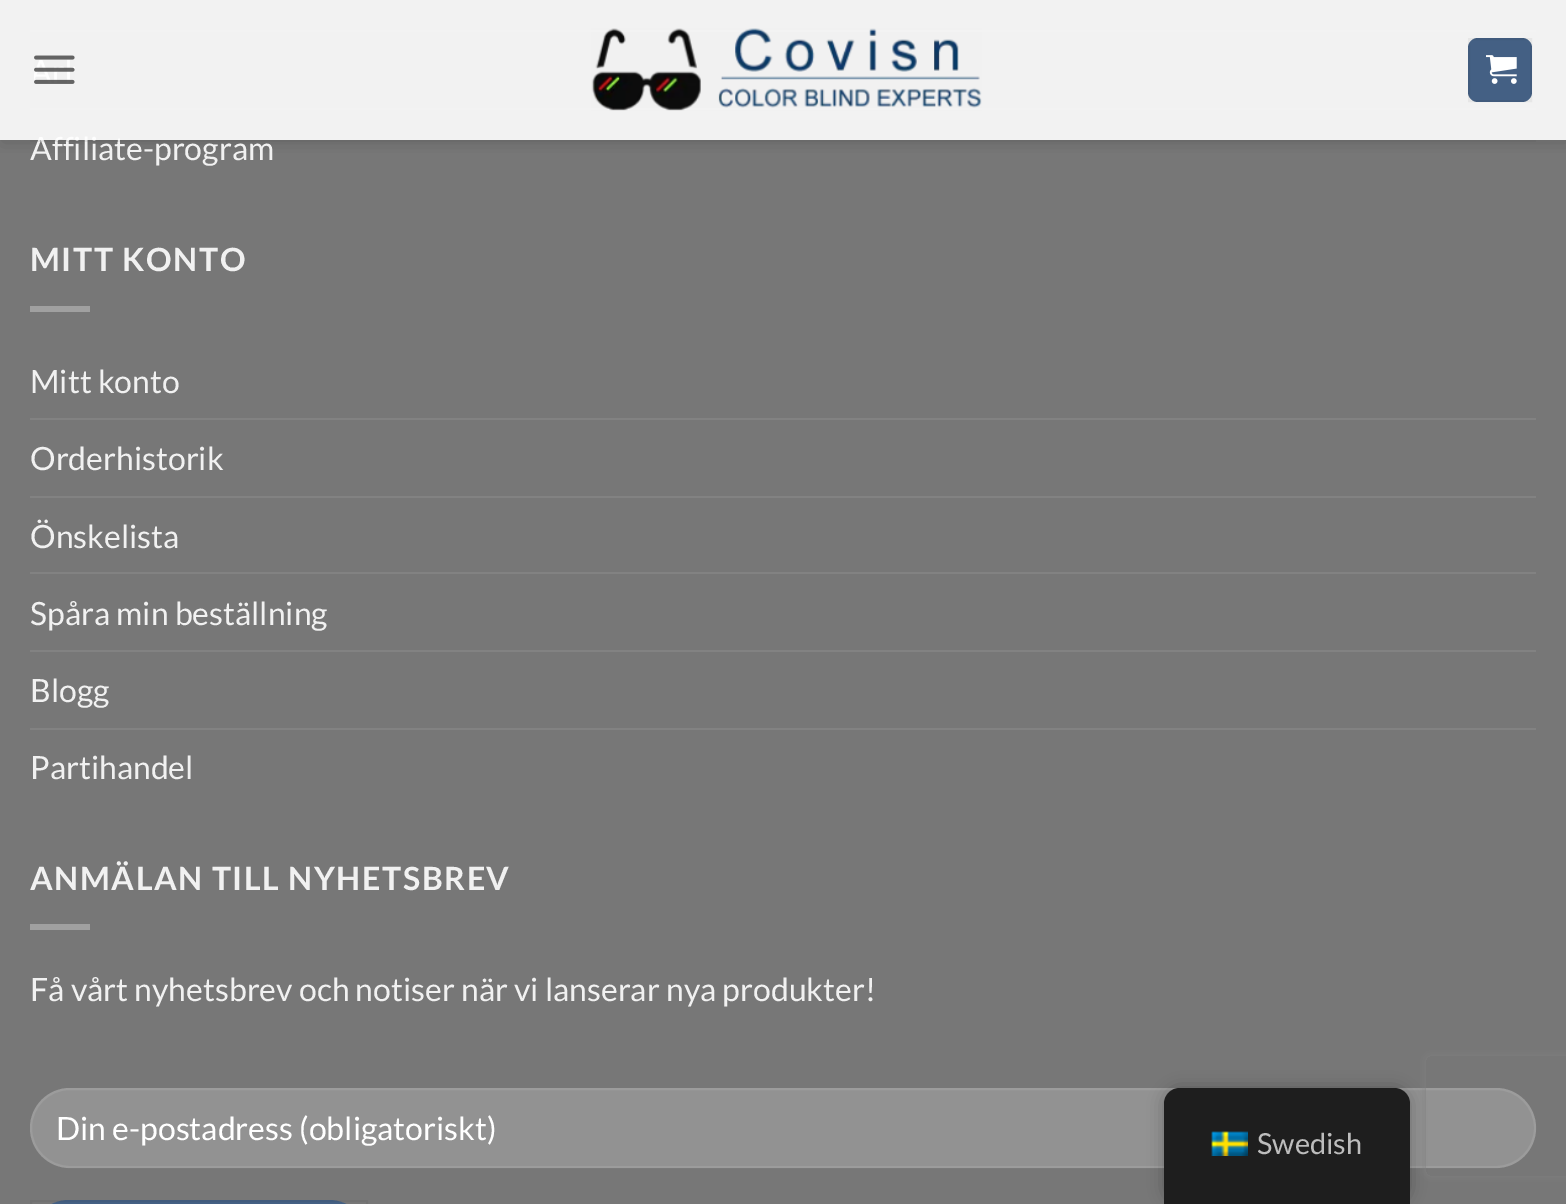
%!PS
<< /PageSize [1566 1204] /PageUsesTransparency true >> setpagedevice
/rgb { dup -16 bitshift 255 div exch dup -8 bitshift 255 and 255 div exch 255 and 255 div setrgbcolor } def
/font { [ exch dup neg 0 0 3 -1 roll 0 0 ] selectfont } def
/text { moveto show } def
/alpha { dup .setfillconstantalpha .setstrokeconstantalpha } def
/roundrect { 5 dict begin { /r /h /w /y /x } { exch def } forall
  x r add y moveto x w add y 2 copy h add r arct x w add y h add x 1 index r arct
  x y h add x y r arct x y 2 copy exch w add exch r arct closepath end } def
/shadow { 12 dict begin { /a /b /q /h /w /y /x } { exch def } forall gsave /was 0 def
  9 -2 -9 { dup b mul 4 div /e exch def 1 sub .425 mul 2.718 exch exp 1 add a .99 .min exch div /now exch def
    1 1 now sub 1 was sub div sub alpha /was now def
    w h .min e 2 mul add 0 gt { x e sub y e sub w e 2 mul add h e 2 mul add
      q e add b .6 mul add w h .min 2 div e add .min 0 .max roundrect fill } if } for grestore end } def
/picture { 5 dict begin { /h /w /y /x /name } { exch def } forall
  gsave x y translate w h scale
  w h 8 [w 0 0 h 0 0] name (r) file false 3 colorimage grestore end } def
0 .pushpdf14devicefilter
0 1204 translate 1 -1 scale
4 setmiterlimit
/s1 { /Lato-Regular 32 font 16#F1F1F1 rgb } def
/s2 { /Lato-Regular 32 font 16#FFFFFF rgb } def
/s3 { /Lato-Regular 29 font 16#BDBDBD rgb } def
16#777777 rgb
0 0 1566 1204 rectfill
16#828282 rgb
30 30 1506 2 rectfill
30 108 1506 2 rectfill
gsave
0 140 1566 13 rectclip
16#000000 rgb
2 2 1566 140 0 10 0.15 shadow
grestore
s1
(Affiliate-program) 30 160 text
0.9 alpha
16#FFFFFF rgb
0 0 1566 140 rectfill
1 alpha
(pic1.raw) 34 55 41 29 picture
(pic2.raw) 591 28 391 83 picture
16#446084 rgb
1468 38 64 64 10 roundrect fill
0.05 alpha
16#000000 rgb
2 setlinewidth
1469 39 62 62 rectstroke
1 alpha
(pic3.raw) 1486 55 31 29 picture
0.1 alpha
16#4A4A4A rgb
30 140 1506 2 rectfill
/Lato-Bold 32 font
1 alpha
16#F1F1F1 rgb
30 271 moveto 1.6 0 (MITT KONTO) ashow
16#A0A0A0 rgb
30 306 60 6 rectfill
s1
(Mitt konto) 30 393 text
16#828282 rgb
30 418 1506 2 rectfill
s1
(Orderhistorik) 30 470 text
16#828282 rgb
30 496 1506 2 rectfill
s1
(Önskelista) 30 548 text
16#828282 rgb
30 572 1506 2 rectfill
s1
(Spåra min beställning) 30 625 text
16#828282 rgb
30 650 1506 2 rectfill
s1
(Blogg) 30 702 text
16#828282 rgb
30 728 1506 2 rectfill
s1
(Partihandel) 30 779 text
/Lato-Bold 32 font
30 890 moveto 1.6 0 (ANMÄLAN TILL NYHETSBREV) ashow
16#A0A0A0 rgb
30 924 60 6 rectfill
s1
(Få vårt nyhetsbrev och notiser när vi lanserar nya produkter!) 30 1001 text
16#929292 rgb
30 1088 1506 80 40 roundrect fill
0.09 alpha
16#FFFFFF rgb
31 1089 1504 78 39 roundrect stroke
1 alpha
(Din e-postadress \(obligatoriskt\)) 56 1140 text
16#446084 rgb
30 1200 338 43 39 roundrect fill
0.05 alpha
16#000000 rgb
31 1201 336 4 rectstroke
1 alpha
1164 1088 246 116 16 8 0.25 shadow
16#1E1E1E rgb
1180 1088 moveto 1394 1088 lineto 1403 1088 1410 1095 1410 1104 curveto 1410 1204 lineto 1164 1204 lineto 1164 1104 lineto 1164 1095 1171 1088 1180 1088 curveto closepath fill
(pic4.raw) 1211 1131 37 25 picture
s3
(Swedish) 1257 1154 text
gsave
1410 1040 moveto 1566 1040 lineto 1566 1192 lineto 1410 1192 lineto closepath 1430 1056 moveto 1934 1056 lineto 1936 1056 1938 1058 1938 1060 curveto 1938 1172 lineto 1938 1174 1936 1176 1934 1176 curveto 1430 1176 lineto 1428 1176 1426 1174 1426 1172 curveto 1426 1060 lineto 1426 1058 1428 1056 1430 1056 curveto closepath eoclip newpath
16#808080 rgb
1426 1056 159 120 4 5 1 shadow
grestore
.poppdf14devicefilter showpage
